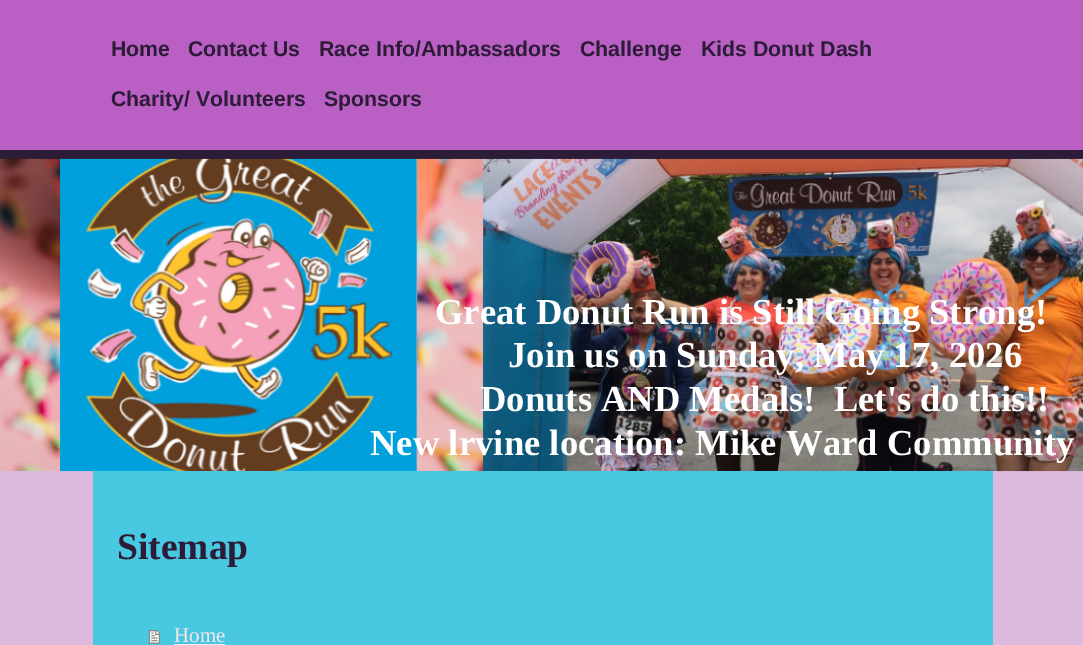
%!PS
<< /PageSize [1083 645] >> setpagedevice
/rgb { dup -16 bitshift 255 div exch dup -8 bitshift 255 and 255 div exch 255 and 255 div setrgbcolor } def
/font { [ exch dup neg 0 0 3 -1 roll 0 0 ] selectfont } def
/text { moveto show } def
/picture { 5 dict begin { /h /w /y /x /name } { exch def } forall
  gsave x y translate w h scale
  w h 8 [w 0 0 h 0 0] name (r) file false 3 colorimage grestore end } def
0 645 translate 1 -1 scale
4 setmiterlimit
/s1 { /LiberationSans-Bold 21.25 font 16#2C1C38 rgb } def
/s2 { /LiberationSerif-Bold 36.6 font 16#FFFFFF rgb } def
/s3 { /LiberationSerif-Bold 37.5 font 16#2C1C38 rgb } def
/s4 { /LiberationSerif-Regular 21 font 16#F7E6EA rgb } def
16#DCBADE rgb
0 0 1083 645 rectfill
16#BA60C5 rgb
0 0 1083 150 rectfill
16#2C1C38 rgb
0 150 1083 9 rectfill
s1
(Home) 111 56 text
(Contact Us) 188 56 text
(Race Info/Ambassadors) 319 56 text
(Challenge) 580 56 text
(Kids Donut Dash) 701 56 text
(Charity/ Volunteers) 111 106 text
(Sponsors) 324 106 text
(pic1.raw) 0 158 1083 314 picture
s2
(Great Donut Run is Still Going Strong!) 435 324 text
508 367 moveto 0.05 0 (Join us on Sunday, May 17, 2026) ashow
(Donuts AND Medals!  Let's do this!!) 480 411 text
370 455 moveto 0.05 0 (New lrvine location: Mike Ward Community) ashow
16#49C8E2 rgb
93 471 900 174 rectfill
s3
(Sitemap) 117 559 text
(pic2.raw) 148 629 13 15 picture
s4
(Home) 174 642 text
174 644 51 1 rectfill
showpage
